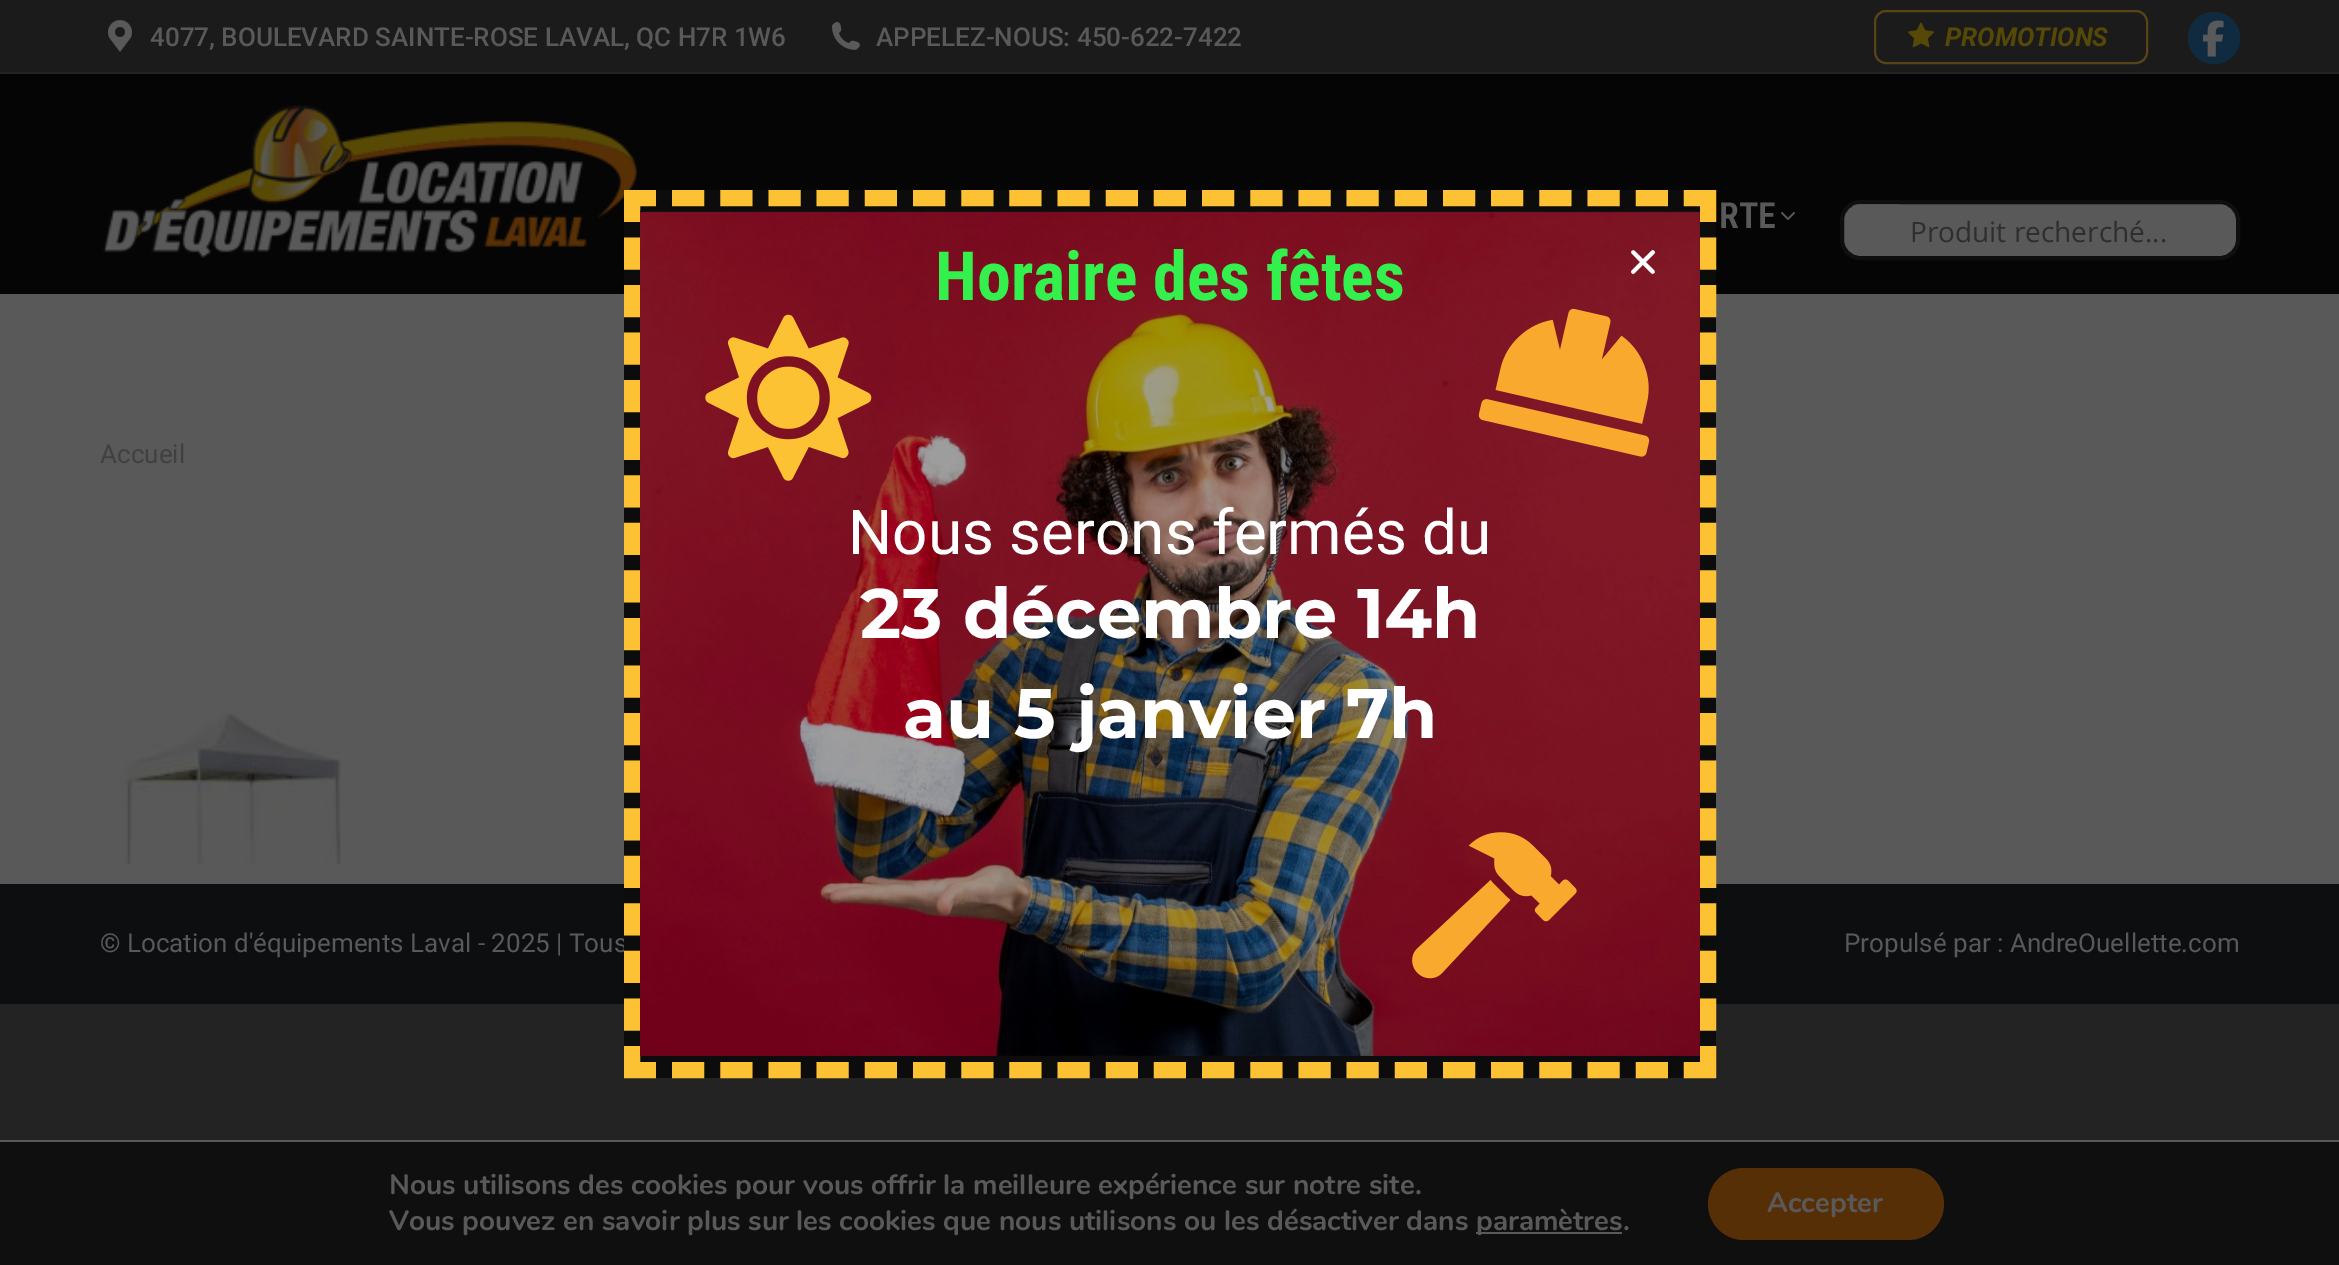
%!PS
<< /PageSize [2339 1265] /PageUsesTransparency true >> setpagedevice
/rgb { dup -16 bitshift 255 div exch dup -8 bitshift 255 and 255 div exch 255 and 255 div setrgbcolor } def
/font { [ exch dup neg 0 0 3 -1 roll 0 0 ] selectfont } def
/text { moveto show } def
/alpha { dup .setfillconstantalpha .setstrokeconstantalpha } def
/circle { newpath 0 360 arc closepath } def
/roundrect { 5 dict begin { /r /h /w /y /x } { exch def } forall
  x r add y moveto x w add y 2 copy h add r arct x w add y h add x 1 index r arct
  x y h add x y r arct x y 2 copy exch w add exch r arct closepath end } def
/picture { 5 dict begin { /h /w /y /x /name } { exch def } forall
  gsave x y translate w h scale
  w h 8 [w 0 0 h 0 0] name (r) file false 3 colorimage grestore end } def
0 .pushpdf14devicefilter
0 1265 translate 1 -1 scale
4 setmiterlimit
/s1 { /Roboto-Medium 26 font 16#595959 rgb } def
/s2 { /Roboto-BoldItalic 26 font 16#564807 rgb } def
/s3 { /RobotoCondensed-SemiBold 36 font 16#595959 rgb } def
/s4 { /OpenSans-Regular 28 font 16#2E2E2E rgb } def
/s5 { /Roboto-Regular 26 font 16#404042 rgb } def
/s6 { /Roboto-Regular 26 font 16#595959 rgb } def
/s7 { /RobotoCondensed-Bold 68 font 16#33F04D rgb } def
/s8 { /Roboto-Regular 62 font 16#FFFFFF rgb } def
/s9 { /Montserrat-Bold 70 font 16#FFFFFF rgb } def
/s10 { /Nunito-Bold 28 font 16#595959 rgb } def
16#232323 rgb
0 0 2339 1265 rectfill
16#595959 rgb
0 294 2339 590 rectfill
16#050505 rgb
0 74 2339 220 rectfill
16#1B1B1B rgb
0 0 2339 72 rectfill
(pic1.raw) 108 20 24 32 picture
s1
(4077, BOULEVARD SAINTE-ROSE LAVAL, QC H7R 1W6) 150 46 text
(pic2.raw) 832 22 28 28 picture
(APPELEZ-NOUS: 450-622-7422) 876 46 text
16#584416 rgb
2 setlinewidth
1875 11 272 52 11 roundrect stroke
(pic3.raw) 1908 22 26 26 picture
s2
(PROMOTIONS) 1945 46 text
16#112A3E rgb
2214 38 26 circle fill
0.41 alpha
16#0F2B43 rgb
2214 38 26 circle fill
1 alpha
(pic4.raw) 2203 20 21 37 picture
(pic5.raw) 103 105 534 153 picture
s3
(RTE) 1719 228 text
(pic6.raw) 1781 212 14 8 picture
1842 202 396 56 18 roundrect gsave fill grestore
16#0F0F0F rgb
4 setlinewidth
stroke
gsave
1844 204 56 56 rectclip
0.64 alpha
16#595959 rgb
1860 204 moveto 2098 204 lineto 2098 256 lineto 1898 256 lineto 1898 206 lineto 1852 206 lineto 1855 205 1857 204 1860 204 curveto closepath fill
grestore
s4
(Produit recherché...) 1910 242 text
s5
(Accueil) 100 463 text
(pic7.raw) 120 712 221 152 picture
16#0D0E0F rgb
0 884 2339 120 rectfill
s6
(© Location d'équipements Laval - 2025 | Tous) 100 952 text
(Propulsé par : AndreOuellette.com) 1844 952 text
16#0C0C0C rgb
624 190 1092 888 rectfill
16#FDC134 rgb
16 setlinewidth
[32 16.18] 0 setdash
624 198 moveto 1716 198 lineto stroke
[32 15.56] 0 setdash
1708 190 moveto 1708 1078 lineto stroke
[32 16.18] 0 setdash
624 1070 moveto 1716 1070 lineto stroke
[32 15.56] 0 setdash
632 190 moveto 632 1078 lineto stroke
(pic8.raw) 640 211 1060 845 picture
0.38 alpha
16#000000 rgb
640 212 1060 844 rectfill
1 alpha
s7
(Horaire des fêtes) 935 300 text
(pic9.raw) 705 314 167 167 picture
(pic10.raw) 1478 308 172 149 picture
s8
(Nous serons fermés du) 848 554 text
s9
(23 décembre 14h) 860 638 text
(au 5 janvier 7h) 903 738 text
(pic11.raw) 1412 832 165 147 picture
(pic12.raw) 1631 250 25 24 picture
16#0F0F0F rgb
0 1142 2339 123 rectfill
16#595959 rgb
0 1140 2339 2 rectfill
s10
(Nous utilisons des cookies pour vous offrir la meilleure expérience sur notre site.) 389 1194 text
(Vous pouvez en savoir plus sur les cookies que nous utilisons ou les désactiver dans) 389 1230 text
1476 1232 146 2 rectfill
(paramètres.) 1476 1230 text
16#572F06 rgb
1708 1168 236 72 36 roundrect fill
s10
(Accepter) 1767 1212 text
.poppdf14devicefilter showpage
